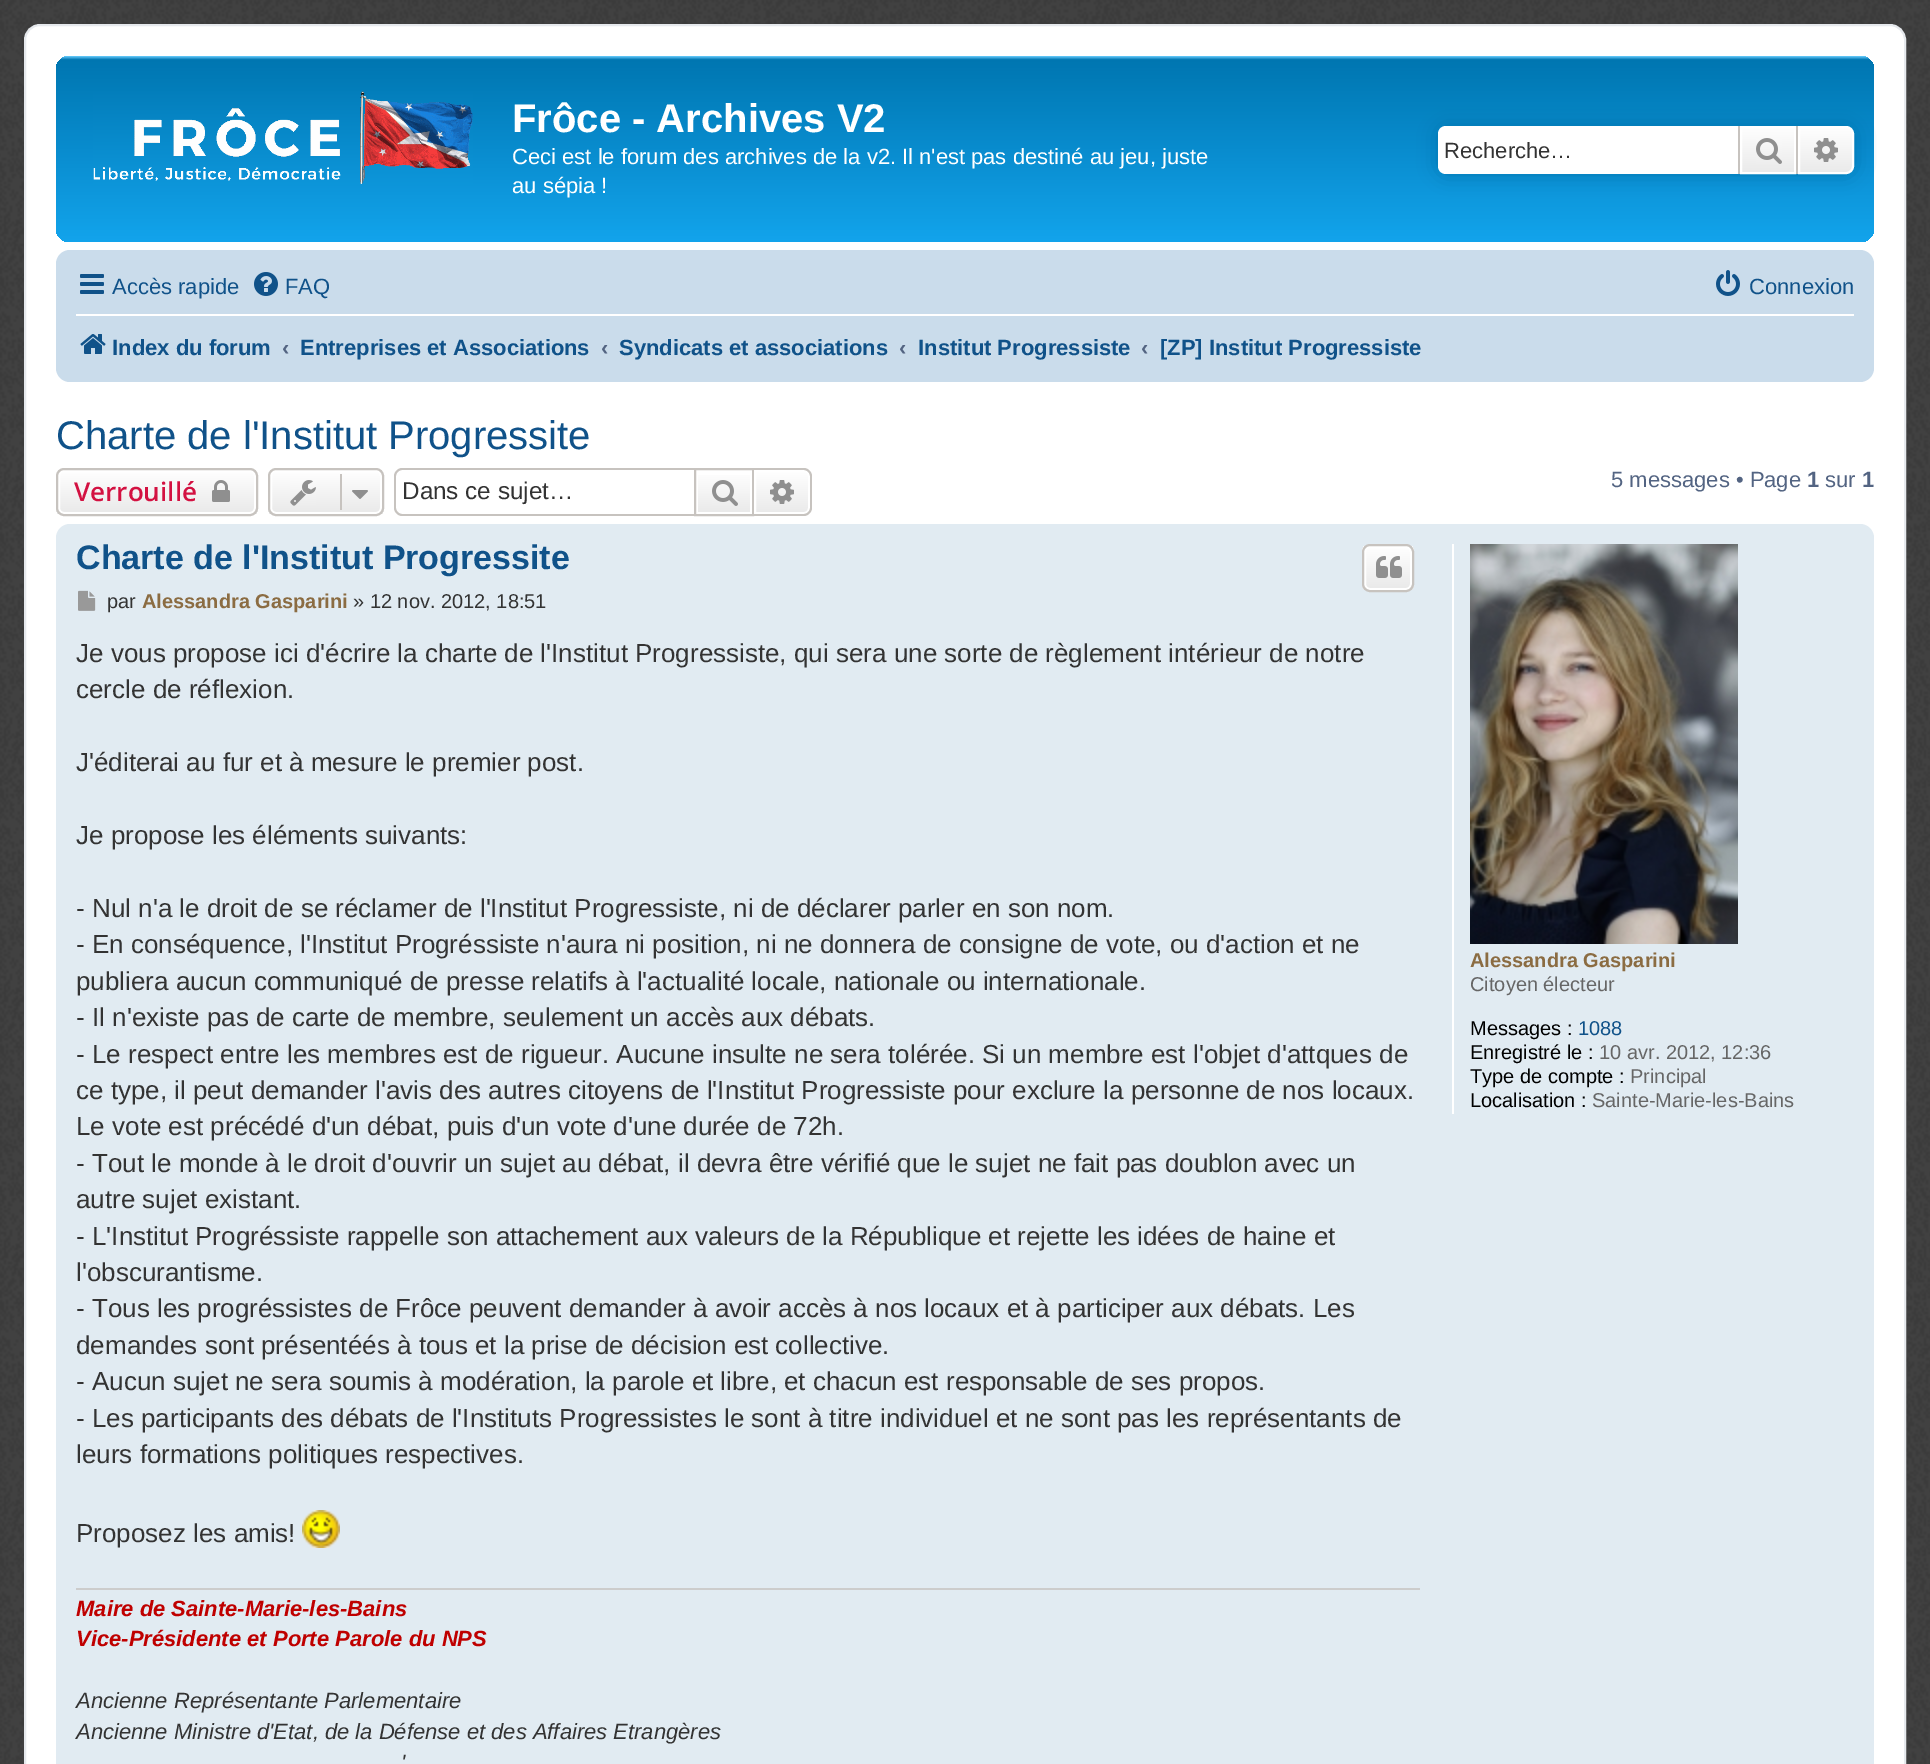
%!PS
<< /PageSize [1930 1764] /PageUsesTransparency true >> setpagedevice
/rgb { dup -16 bitshift 255 div exch dup -8 bitshift 255 and 255 div exch 255 and 255 div setrgbcolor } def
/font { [ exch dup neg 0 0 3 -1 roll 0 0 ] selectfont } def
/text { moveto show } def
/alpha { dup .setfillconstantalpha .setstrokeconstantalpha } def
/roundrect { 5 dict begin { /r /h /w /y /x } { exch def } forall
  x r add y moveto x w add y 2 copy h add r arct x w add y h add x 1 index r arct
  x y h add x y r arct x y 2 copy exch w add exch r arct closepath end } def
/shadow { 12 dict begin { /a /b /q /h /w /y /x } { exch def } forall gsave /was 0 def
  9 -2 -9 { dup b mul 4 div /e exch def 1 sub .425 mul 2.718 exch exp 1 add a .99 .min exch div /now exch def
    1 1 now sub 1 was sub div sub alpha /was now def
    w h .min e 2 mul add 0 gt { x e sub y e sub w e 2 mul add h e 2 mul add
      q e add b .6 mul add w h .min 2 div e add .min 0 .max roundrect fill } if } for grestore end } def
/picture { 5 dict begin { /h /w /y /x /name } { exch def } forall
  gsave x y translate w h scale
  w h 8 [w 0 0 h 0 0] name (r) file false 3 colorimage grestore end } def
0 .pushpdf14devicefilter
0 1764 translate 1 -1 scale
4 setmiterlimit
/s1 { /LiberationSans-Bold 40 font 16#FFFFFF rgb } def
/s2 { /LiberationSans-Regular 22 font 16#FFFFFF rgb } def
/s3 { /LiberationSans-Regular 22 font 16#333333 rgb } def
/s4 { /LiberationSans-Regular 22 font 16#105289 rgb } def
/s5 { /LiberationSans-Bold 22 font 16#105289 rgb } def
/s6 { /LiberationSans-Bold 22 font 16#536482 rgb } def
/s7 { /LiberationSans-Regular 40 font 16#105289 rgb } def
/s8 { /OpenSans-SemiBold 26 font 16#D31141 rgb } def
/s9 { /LiberationSans-Regular 24.25 font 16#333333 rgb } def
/s10 { /LiberationSans-Regular 22 font 16#536482 rgb } def
/s11 { /LiberationSans-Bold 34 font 16#105289 rgb } def
/s12 { /LiberationSans-Regular 20 font 16#333333 rgb } def
/s13 { /LiberationSans-Bold 20 font 16#8B6C42 rgb } def
/s14 { /LiberationSans-Regular 26 font 16#333333 rgb } def
/s15 { /LiberationSans-BoldItalic 22 font 16#BF0000 rgb } def
/s16 { /LiberationSans-Italic 22 font 16#333333 rgb } def
/s17 { /LiberationSans-Regular 20 font 16#666666 rgb } def
/s18 { /LiberationSans-Regular 20 font 16#000000 rgb } def
/s19 { /LiberationSans-Regular 20 font 16#105289 rgb } def
16#FFFFFF rgb
0 0 1930 1764 rectfill
(pic1.raw) 0 0 1930 1764 picture
25 25 1880 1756 15 roundrect gsave fill grestore
16#E6E9ED rgb
2 setlinewidth
stroke
gsave 56 56 1818 186 14 roundrect clip newpath
<< /ShadingType 2 /ColorSpace /DeviceRGB /Coords [965 56 965 242] /Extend [true true] /Function << /FunctionType 3 /Domain [0 1] /Functions [<< /FunctionType 2 /Domain [0 1] /C0 [0.416 0.808 1] /C1 [0 0.463 0.694] /N 1 >> << /FunctionType 2 /Domain [0 1] /C0 [0 0.463 0.694] /C1 [0.071 0.639 0.922] /N 1 >> << /FunctionType 2 /Domain [0 1] /C0 [0.071 0.639 0.922] /C1 [0.071 0.639 0.922] /N 1 >>] /Bounds [0.02 0.99] /Encode [0 1 0 1 0 1] >> >> shfill grestore
(pic2.raw) 93 91 380 93 picture
s1
(Frôce - Archives V2) 512 132 text
s2
(Ceci est le forum des archives de la v2. Il n'est pas destiné au jeu, juste) 512 164 text
(au sépia !) 512 193 text
16#0075B0 rgb
1438 126 416 48 8 10 1 shadow
16#FFFFFF rgb
1446 126 moveto 1738 126 lineto 1738 174 lineto 1446 174 lineto 1441.5 174 1438 170.5 1438 166 curveto 1438 134 lineto 1438 129.5 1441.5 126 1446 126 curveto closepath fill
s3
(Recherche…) 1444 158 text
gsave 1742 128 moveto 1794 128 lineto 1794 172 lineto 1742 172 lineto closepath clip newpath
<< /ShadingType 2 /ColorSpace /DeviceRGB /Coords [1768 126 1768 174] /Extend [true true] /Function << /FunctionType 2 /Domain [0 1] /C0 [1 1 1] /C1 [0.914 0.914 0.914] /N 1 >> >> shfill grestore
16#FFFFFF rgb
1741 127 54 46 rectstroke
16#C7C3BF rgb
1796 126 2 48 rectfill
1738 126 2 48 rectfill
(pic3.raw) 1756 138 26 26 picture
gsave 1799 127 moveto 1846 127 lineto 1850 127 1853 130 1853 134 curveto 1853 166 lineto 1853 170 1850 173 1846 173 curveto 1799 173 lineto closepath clip newpath
<< /ShadingType 2 /ColorSpace /DeviceRGB /Coords [1826 126 1826 174] /Extend [true true] /Function << /FunctionType 2 /Domain [0 1] /C0 [1 1 1] /C1 [0.914 0.914 0.914] /N 1 >> >> shfill grestore
16#FFFFFF rgb
1799 127 moveto 1846 127 lineto 1850 127 1853 130 1853 134 curveto 1853 166 lineto 1853 170 1850 173 1846 173 curveto 1799 173 lineto closepath stroke
(pic4.raw) 1814 138 24 24 picture
16#CADCEB rgb
56 250 1818 132 14 roundrect fill
(pic5.raw) 80 274 24 20 picture
s4
(Accès rapide) 112 294 text
(pic6.raw) 254 272 24 24 picture
(FAQ) 285 294 text
(pic7.raw) 1716 270 24 26 picture
(Connexion) 1749 294 text
16#FFFFFF rgb
76 314 1778 2 rectfill
(pic8.raw) 80 334 26 20 picture
s5
(Index du forum) 112 355 text
s6
(‹) 282 355 text
s5
(Entreprises et Associations) 300 355 text
s6
(‹) 601 355 text
s5
(Syndicats et associations) 619 355 text
s6
(‹) 899 355 text
s5
(Institut Progressiste) 918 355 text
s6
(‹) 1141 355 text
s5
([ZP] Institut Progressiste) 1160 355 text
s7
(Charte de l'Institut Progressite) 56 449 text
gsave
56 468 202 48 8 roundrect clip newpath
gsave 56 470 moveto 258 470 lineto 258 514 lineto 56 514 lineto closepath clip newpath
<< /ShadingType 2 /ColorSpace /DeviceRGB /Coords [157 470 157 514] /Extend [true true] /Function << /FunctionType 2 /Domain [0 1] /C0 [1 1 1] /C1 [0.914 0.914 0.914] /N 1 >> >> shfill grestore
grestore
16#FFFFFF rgb
59 471 196 42 5 roundrect stroke
16#C7C3BF rgb
57 469 200 46 7 roundrect stroke
s8
(Verrouillé) 74 501 text
(pic9.raw) 212 480 18 22 picture
gsave
268 468 116 48 8 roundrect clip newpath
gsave 268 470 moveto 384 470 lineto 384 514 lineto 268 514 lineto closepath clip newpath
<< /ShadingType 2 /ColorSpace /DeviceRGB /Coords [326 470 326 514] /Extend [true true] /Function << /FunctionType 2 /Domain [0 1] /C0 [1 1 1] /C1 [0.914 0.914 0.914] /N 1 >> >> shfill grestore
grestore
16#FFFFFF rgb
271 471 110 42 5 roundrect stroke
16#C7C3BF rgb
269 469 114 46 7 roundrect stroke
(pic10.raw) 290 480 26 26 picture
340 474 2 36 rectfill
(pic11.raw) 352 490 16 9 picture
402 468 moveto 694 468 lineto 694 516 lineto 402 516 lineto 398 516 394 512 394 508 curveto 394 476 lineto 394 472 398 468 402 468 curveto closepath 402 470 moveto 694 470 lineto 694 514 lineto 402 514 lineto 399 514 396 511 396 508 curveto 396 476 lineto 396 473 399 470 402 470 curveto closepath eofill
s9
(Dans ce sujet…) 402 499 text
gsave 698 475 moveto 750 475 lineto 750 512 lineto 698 512 lineto closepath clip newpath
<< /ShadingType 2 /ColorSpace /DeviceRGB /Coords [724 470 724 514] /Extend [true true] /Function << /FunctionType 2 /Domain [0 1] /C0 [1 1 1] /C1 [0.914 0.914 0.914] /N 1 >> >> shfill grestore
16#C7C3BF rgb
695 469 58 46 rectstroke
(pic12.raw) 712 480 26 26 picture
gsave 755 471 moveto 804 471 lineto 807 471 809 473 809 476 curveto 809 508 lineto 809 511 807 513 804 513 curveto 755 513 lineto closepath clip newpath
<< /ShadingType 2 /ColorSpace /DeviceRGB /Coords [782 470 782 514] /Extend [true true] /Function << /FunctionType 2 /Domain [0 1] /C0 [1 1 1] /C1 [0.914 0.914 0.914] /N 1 >> >> shfill grestore
16#FFFFFF rgb
755 471 moveto 804 471 lineto 807 471 809 473 809 476 curveto 809 508 lineto 809 511 807 513 804 513 curveto 755 513 lineto closepath stroke
16#C7C3BF rgb
754 468 moveto 804 468 lineto 808 468 812 472 812 476 curveto 812 508 lineto 812 512 808 516 804 516 curveto 754 516 lineto closepath 754 470 moveto 804 470 lineto 807 470 810 473 810 476 curveto 810 508 lineto 810 511 807 514 804 514 curveto 754 514 lineto closepath eofill
(pic13.raw) 770 480 24 24 picture
s10
(5 messages • Page) 1611 487 text
s6
(1) 1807 487 text
s10
(sur) 1825 487 text
s6
(1) 1862 487 text
16#E1EBF2 rgb
56 524 1818 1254 14 roundrect fill
s11
(Charte de l'Institut Progressite) 76 569 text
gsave
1362 544 52 48 8 roundrect clip newpath
gsave 1362 546 moveto 1414 546 lineto 1414 590 lineto 1362 590 lineto closepath clip newpath
<< /ShadingType 2 /ColorSpace /DeviceRGB /Coords [1388 546 1388 590] /Extend [true true] /Function << /FunctionType 2 /Domain [0 1] /C0 [1 1 1] /C1 [0.914 0.914 0.914] /N 1 >> >> shfill grestore
grestore
16#FFFFFF rgb
1365 547 46 42 5 roundrect stroke
16#C7C3BF rgb
1363 545 50 46 7 roundrect stroke
(pic14.raw) 1376 556 26 22 picture
(pic15.raw) 78 590 18 21 picture
s12
(par) 107 608 text
s13
(Alessandra Gasparini) 142 608 text
s12
(» 12 nov. 2012, 18:51) 353 608 text
s14
(Je vous propose ici d'écrire la charte de l'Institut Progressiste, qui sera une sorte de règlement intérieur de notre) 76 662 text
(cercle de réflexion.) 76 698 text
(J'éditerai au fur et à mesure le premier post.) 76 771 text
(Je propose les éléments suivants:) 76 844 text
(- Nul n'a le droit de se réclamer de l'Institut Progressiste, ni de déclarer parler en son nom.) 76 917 text
(- En conséquence, l'Institut Progréssiste n'aura ni position, ni ne donnera de consigne de vote, ou d'action et ne) 76 953 text
(publiera aucun communiqué de presse relatifs à l'actualité locale, nationale ou internationale.) 76 990 text
(- Il n'existe pas de carte de membre, seulement un accès aux débats.) 76 1026 text
(- Le respect entre les membres est de rigueur. Aucune insulte ne sera tolérée. Si un membre est l'objet d'attques de) 76 1063 text
(ce type, il peut demander l'avis des autres citoyens de l'Institut Progressiste pour exclure la personne de nos locaux.) 76 1099 text
(Le vote est précédé d'un débat, puis d'un vote d'une durée de 72h.) 76 1135 text
(- Tout le monde à le droit d'ouvrir un sujet au débat, il devra être vérifié que le sujet ne fait pas doublon avec un) 76 1172 text
(autre sujet existant.) 76 1208 text
(- L'Institut Progréssiste rappelle son attachement aux valeurs de la République et rejette les idées de haine et) 76 1245 text
(l'obscurantisme.) 76 1281 text
(- Tous les progréssistes de Frôce peuvent demander à avoir accès à nos locaux et à participer aux débats. Les) 76 1317 text
(demandes sont présentéés à tous et la prise de décision est collective.) 76 1354 text
(- Aucun sujet ne sera soumis à modération, la parole et libre, et chacun est responsable de ses propos.) 76 1390 text
(- Les participants des débats de l'Instituts Progressistes le sont à titre individuel et ne sont pas les représentants de) 76 1427 text
(leurs formations politiques respectives.) 76 1463 text
(Proposez les amis!) 76 1542 text
(pic16.raw) 302 1510 38 38 picture
16#CCCCCC rgb
76 1588 1344 2 rectfill
s15
(Maire de Sainte-Marie-les-Bains) 76 1616 text
(Vice-Présidente et Porte Parole du NPS) 76 1646 text
s16
(Ancienne Représentante Parlementaire) 76 1708 text
(Ancienne Ministre d'Etat, de la Défense et des Affaires Etrangères) 76 1739 text
(') 401 1770 text
16#FFFFFF rgb
1452 544 2 570 rectfill
(pic17.raw) 1470 544 268 400 picture
s13
(Alessandra Gasparini) 1470 967 text
s17
(Citoyen électeur) 1470 991 text
s18
(Messages :) 1470 1035 text
s19
(1088) 1578 1035 text
s18
(Enregistré le :) 1470 1059 text
s17
(10 avr. 2012, 12:36) 1599 1059 text
s18
(Type de compte :) 1470 1083 text
s17
(Principal) 1630 1083 text
s18
(Localisation :) 1470 1107 text
s17
(Sainte-Marie-les-Bains) 1592 1107 text
.poppdf14devicefilter showpage
